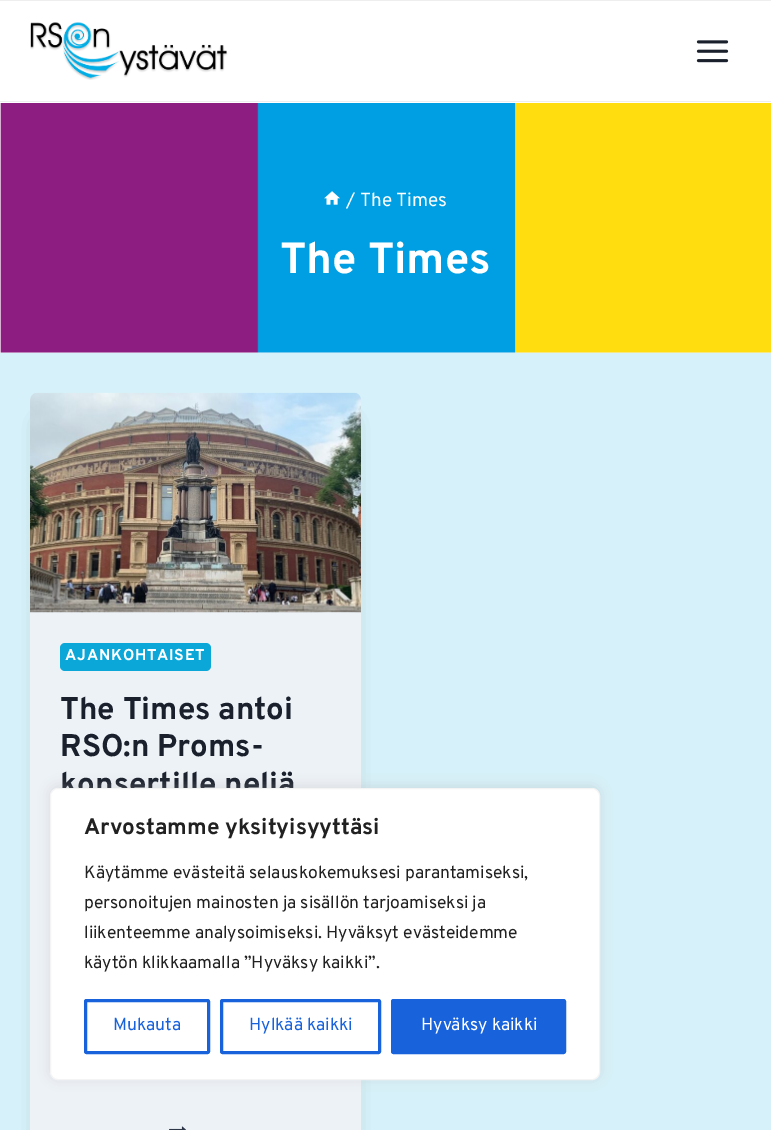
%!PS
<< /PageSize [771 1130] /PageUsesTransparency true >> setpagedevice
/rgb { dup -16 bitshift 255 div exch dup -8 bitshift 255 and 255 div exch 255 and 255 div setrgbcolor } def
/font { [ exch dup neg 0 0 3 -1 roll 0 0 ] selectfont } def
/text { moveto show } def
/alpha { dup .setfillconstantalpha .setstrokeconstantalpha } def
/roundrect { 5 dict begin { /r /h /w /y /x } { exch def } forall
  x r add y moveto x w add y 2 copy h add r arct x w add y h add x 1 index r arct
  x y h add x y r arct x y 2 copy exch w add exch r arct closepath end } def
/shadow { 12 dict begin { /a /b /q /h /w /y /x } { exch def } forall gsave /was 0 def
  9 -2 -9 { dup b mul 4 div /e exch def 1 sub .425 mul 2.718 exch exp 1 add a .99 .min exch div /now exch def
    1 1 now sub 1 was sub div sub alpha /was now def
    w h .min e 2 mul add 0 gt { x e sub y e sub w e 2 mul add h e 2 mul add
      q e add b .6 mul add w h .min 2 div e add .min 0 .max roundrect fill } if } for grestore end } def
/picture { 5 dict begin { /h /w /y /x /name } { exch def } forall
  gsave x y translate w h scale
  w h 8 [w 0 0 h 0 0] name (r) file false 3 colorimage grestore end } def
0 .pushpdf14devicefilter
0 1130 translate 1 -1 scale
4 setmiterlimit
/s1 { /Overpass-Regular 19 font 16#FFFFFF rgb } def
/s2 { /Overpass-Bold 43.75 font 16#FFFFFF rgb } def
/s3 { /Overpass-Bold 31.25 font 16#1A202C rgb } def
/s4 { /Overpass-Bold 22.5 font 16#212121 rgb } def
/s5 { /Overpass-Regular 17.5 font 16#212121 rgb } def
/s6 { /Overpass-Regular 17.5 font 16#1863DC rgb } def
/s7 { /Overpass-Regular 17.5 font 16#FFFFFF rgb } def
16#D6F1F9 rgb
0 0 771 1130 rectfill
16#FFFFFF rgb
0 1 771 102 rectfill
16#EEEEEE rgb
0 0 771 1 rectfill
0 101 771 1 rectfill
(pic1.raw) 30 22 198 58 picture
(pic2.raw) 696 40 33 23 picture
16#EDF2F7 rgb
0 352 771 1 rectfill
(pic3.raw) 0 103 771 250 picture
(pic4.raw) 324 191 16 14 picture
s1
(/ The Times) 346 206 text
s2
(The Times) 280 273 text
16#000000 rgb
43 424 306 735 0 9.5 0.36 shadow
16#EDF2F7 rgb
30 393 331 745 8 roundrect fill
(pic5.raw) 30 392 331 221 picture
16#0BA7D8 rgb
60 643 151 28 5 roundrect fill
/Overpass-Bold 15.75 font
16#FFFFFF rgb
65 660 moveto 0.75 0 (AJANKOHTAISET) ashow
s3
(The Times antoi) 60 719 text
(RSO:n Proms-) 60 756 text
(konsertille neljä) 60 794 text
(pic6.raw) 169 1126 17 4 picture
16#ACABAB rgb
50 786 550 293 8 6 0.3 shadow
16#FFFFFF rgb
50.5 788.5 549 291 7.5 roundrect gsave fill grestore
16#F4F4F4 rgb
stroke
s4
(Arvostamme yksityisyyttäsi) 84 834 text
s5
(Käytämme evästeitä selauskokemuksesi parantamiseksi,) 84 878 text
(personoitujen mainosten ja sisällön tarjoamiseksi ja) 84 908 text
(liikenteemme analysoimiseksi. Hyväksyt evästeidemme) 84 938 text
(käytön klikkaamalla ”Hyväksy kaikki”.) 84 968 text
16#1863DC rgb
3 setlinewidth
85.5 1000.5 123 52 1 roundrect stroke
(Mukauta) 113 1030 text
221.5 1000.5 158 52 1 roundrect stroke
(Hylkää kaikki) 249 1030 text
392.5 1000.5 172 52 1 roundrect gsave fill grestore
stroke
s7
(Hyväksy kaikki) 421 1030 text
.poppdf14devicefilter showpage
